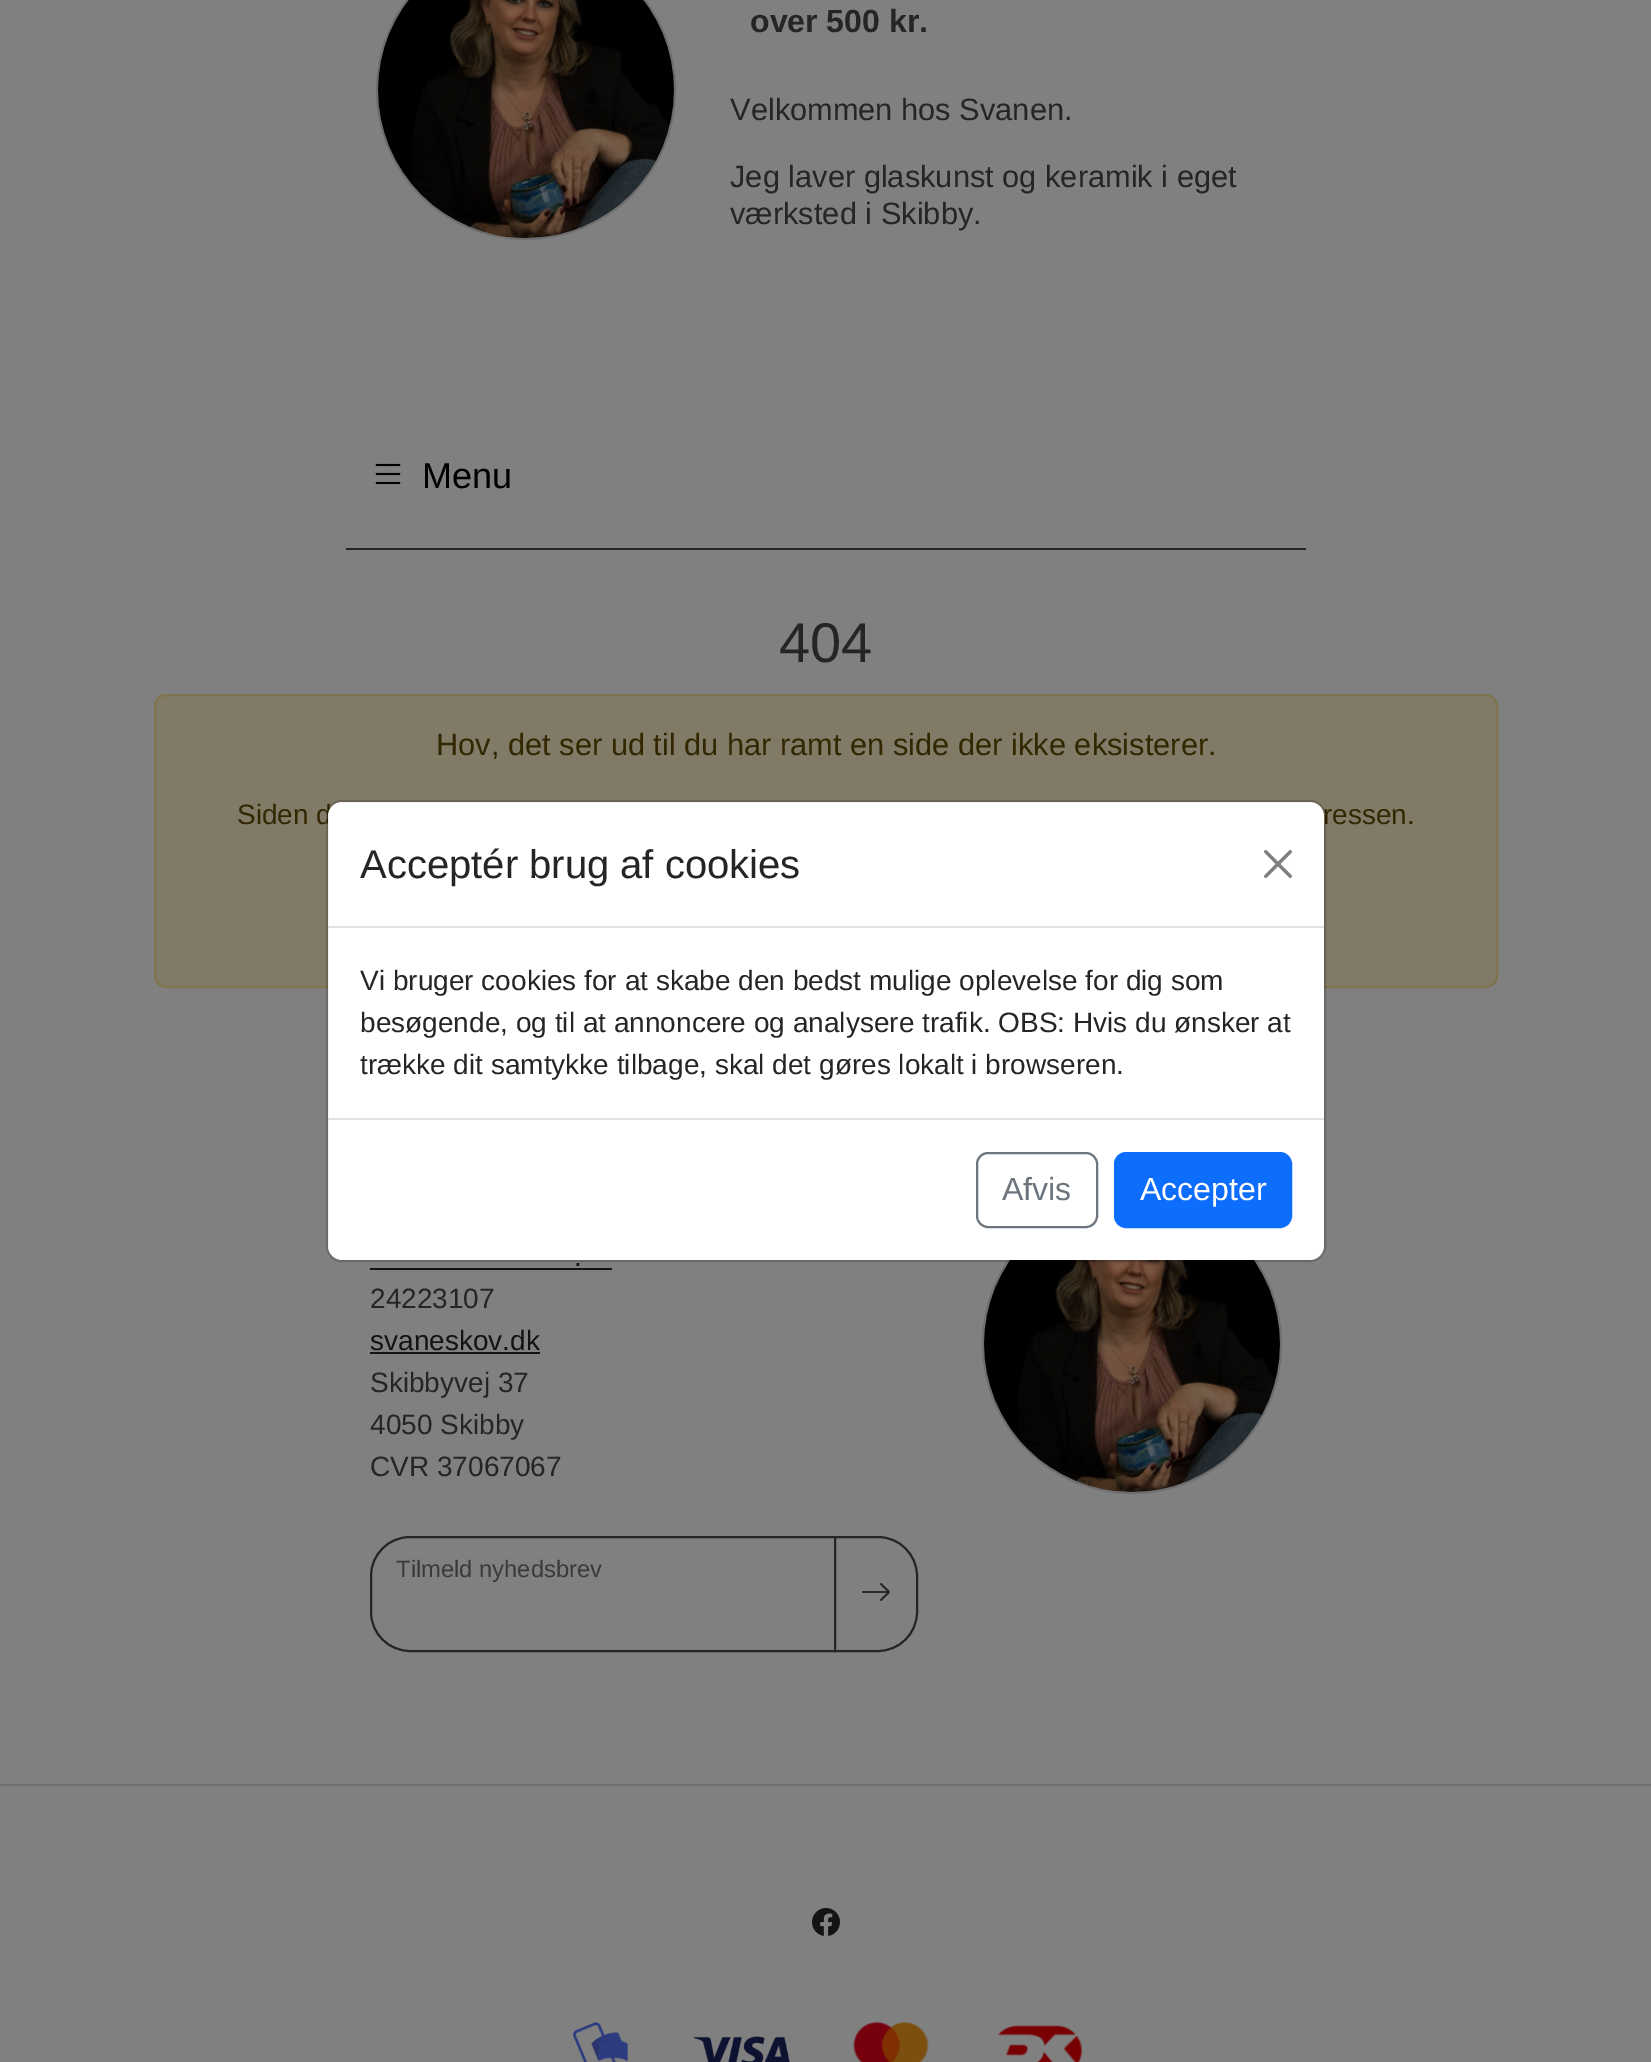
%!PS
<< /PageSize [1651 2062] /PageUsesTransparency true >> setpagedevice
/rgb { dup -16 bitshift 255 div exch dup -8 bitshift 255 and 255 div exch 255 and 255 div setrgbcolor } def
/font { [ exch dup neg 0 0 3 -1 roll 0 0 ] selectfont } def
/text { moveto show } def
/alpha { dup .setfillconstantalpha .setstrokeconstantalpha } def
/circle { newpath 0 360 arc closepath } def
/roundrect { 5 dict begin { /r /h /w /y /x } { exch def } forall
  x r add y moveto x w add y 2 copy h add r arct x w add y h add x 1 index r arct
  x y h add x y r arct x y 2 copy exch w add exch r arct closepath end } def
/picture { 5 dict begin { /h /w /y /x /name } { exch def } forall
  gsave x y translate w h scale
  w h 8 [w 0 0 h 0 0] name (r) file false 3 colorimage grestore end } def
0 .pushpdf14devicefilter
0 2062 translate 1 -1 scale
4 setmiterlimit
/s1 { /LiberationSans-Bold 32 font 16#252525 rgb } def
/s2 { /LiberationSans-Regular 30.8 font 16#252525 rgb } def
/s3 { /LiberationSans-Regular 36 font 16#000000 rgb } def
/s4 { /LiberationSans-Regular 56 font 16#252525 rgb } def
/s5 { /LiberationSans-Regular 30.8 font 16#332702 rgb } def
/s6 { /LiberationSans-Regular 28 font 16#332702 rgb } def
/s7 { /LiberationSans-Regular 28 font 16#131313 rgb } def
/s8 { /LiberationSans-Regular 28 font 16#252525 rgb } def
/s9 { /LiberationSans-Regular 23.75 font 16#38393A rgb } def
/s10 { /LiberationSans-Regular 40 font 16#252525 rgb } def
/s11 { /LiberationSans-Regular 32 font 16#6C757D rgb } def
/s12 { /LiberationSans-Regular 32 font 16#FFFFFF rgb } def
16#808080 rgb
0 0 1651 2062 rectfill
16#6E6E6E rgb
2 setlinewidth
526 90 149 circle stroke
(pic1.raw) 378 0 296 238 picture
s1
(over 500 kr.) 750 32 text
s2
(Velkommen hos Svanen.) 730 120 text
(Jeg laver glaskunst og keramik i eget) 730 187 text
(værksted i Skibby.) 730 224 text
(pic2.raw) 375 463 26 22 picture
s3
(Menu) 422 488 text
16#252525 rgb
346 548 960 2 rectfill
s4
(404) 779 662 text
16#807A67 rgb
155 695 1342 292 11 roundrect gsave fill grestore
16#80734E rgb
stroke
s5
(Hov, det ser ud til du har ramt en side der ikke eksisterer.) 436 755 text
s6
(Siden d) 237 824 text
(ressen.) 1323 824 text
s7
(.) 574 1266 text
370 1268 242 2 rectfill
s8
(24223107) 370 1308 text
s7
(svaneskov.dk) 370 1350 text
370 1352 170 2 rectfill
s8
(Skibbyvej 37) 370 1392 text
(4050 Skibby) 370 1434 text
(CVR 37067067) 370 1476 text
410 1537 moveto 835 1537 lineto 835 1651 lineto 410 1651 lineto 388.5 1651 371 1633.5 371 1612 curveto 371 1576 lineto 371 1554.5 388.5 1537 410 1537 curveto closepath stroke
s9
(Tilmeld nyhedsbrev) 396 1577 text
16#808080 rgb
835 1537 moveto 878 1537 lineto 899.5 1537 917 1554.5 917 1576 curveto 917 1612 lineto 917 1633.5 899.5 1651 878 1651 curveto 835 1651 lineto closepath gsave fill grestore
16#252525 rgb
stroke
(pic3.raw) 862 1583 28 18 picture
16#6E6E6E rgb
1132 1344 149 circle stroke
(pic4.raw) 984 1260 296 232 picture
0 1784 1651 2 rectfill
(pic5.raw) 812 1908 28 28 picture
(pic6.raw) 572 2022 57 40 picture
(pic7.raw) 693 2036 97 26 picture
(pic8.raw) 853 2022 76 40 picture
(pic9.raw) 998 2025 85 37 picture
16#FFFFFF rgb
328 802 996 458 14 roundrect fill
0.18 alpha
16#000000 rgb
327 801 998 460 15 roundrect stroke
1 alpha
16#DEE2E6 rgb
328 926 996 2 rectfill
s10
(Acceptér brug af cookies) 360 878 text
(pic10.raw) 1264 850 28 28 picture
s8
(Vi bruger cookies for at skabe den bedst mulige oplevelse for dig som) 360 990 text
(besøgende, og til at annoncere og analysere trafik. OBS: Hvis du ønsker at) 360 1032 text
(trække dit samtykke tilbage, skal det gøres lokalt i browseren.) 360 1074 text
16#DEE2E6 rgb
328 1118 996 2 rectfill
16#6C757D rgb
977 1153 120 74 11 roundrect stroke
s11
(Afvis) 1002 1200 text
16#0D6EFD rgb
1115 1153 176 74 11 roundrect gsave fill grestore
stroke
s12
(Accepter) 1140 1200 text
.poppdf14devicefilter showpage
